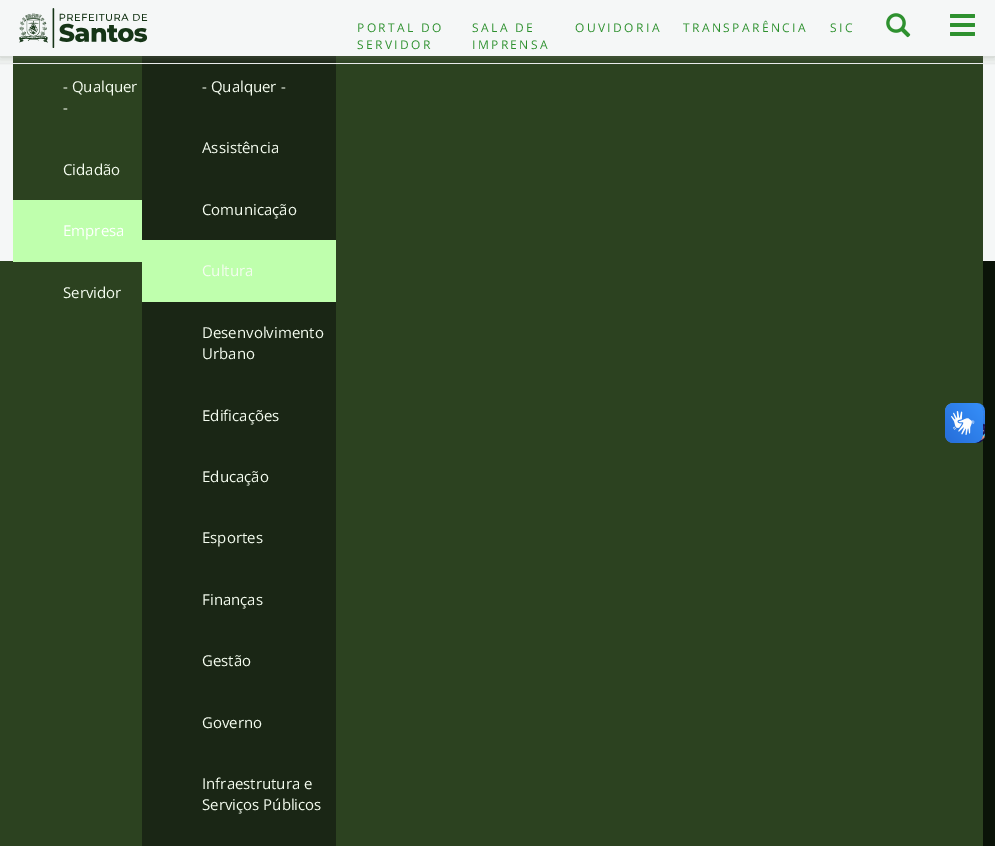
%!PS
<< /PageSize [995 846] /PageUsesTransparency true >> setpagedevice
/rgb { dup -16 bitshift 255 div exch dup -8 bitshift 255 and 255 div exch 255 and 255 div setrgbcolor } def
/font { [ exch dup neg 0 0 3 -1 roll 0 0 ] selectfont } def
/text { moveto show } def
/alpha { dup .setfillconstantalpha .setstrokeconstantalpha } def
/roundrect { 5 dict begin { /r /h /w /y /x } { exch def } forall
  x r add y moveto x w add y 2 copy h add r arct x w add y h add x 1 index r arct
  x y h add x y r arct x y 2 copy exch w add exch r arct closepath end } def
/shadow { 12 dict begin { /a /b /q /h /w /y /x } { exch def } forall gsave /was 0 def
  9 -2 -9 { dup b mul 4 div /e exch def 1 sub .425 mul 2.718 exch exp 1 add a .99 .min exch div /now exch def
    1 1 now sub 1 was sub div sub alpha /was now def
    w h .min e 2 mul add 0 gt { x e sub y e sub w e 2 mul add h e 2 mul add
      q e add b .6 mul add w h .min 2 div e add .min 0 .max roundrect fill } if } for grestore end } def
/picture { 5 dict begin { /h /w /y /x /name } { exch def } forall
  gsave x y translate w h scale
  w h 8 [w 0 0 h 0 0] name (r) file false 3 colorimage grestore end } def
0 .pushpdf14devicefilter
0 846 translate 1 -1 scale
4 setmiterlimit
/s1 { /OpenSans-Regular 15 font 16#F4FCEF rgb } def
/s2 { /OpenSans-Regular 15 font 16#FFFFFF rgb } def
16#F5F7F7 rgb
0 0 995 846 rectfill
16#2C4220 rgb
13 56 970 790 rectfill
16#1A2615 rgb
142 56 194 790 rectfill
gsave
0 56 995 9 rectclip
16#788174 rgb
0 1 995 56 0 5 0.44 shadow
grestore
16#E9EBEB rgb
0 63 995 1 rectfill
(pic1.raw) 19 8 129 40 picture
/OpenSans-Regular 12 font
16#2E912F rgb
357 32 moveto 2.4 0 (PORTAL DO) ashow
357 49 moveto 2.4 0 (SERVIDOR) ashow
472 32 moveto 2.4 0 (SALA DE) ashow
472 49 moveto 2.4 0 (IMPRENSA) ashow
575 32 moveto 2.4 0 (OUVIDORIA) ashow
683 32 moveto 2.4 0 (TRANSPARÊNCIA) ashow
830 32 moveto 2.4 0 (SIC) ashow
(pic2.raw) 886 13 25 25 picture
950 14 25 4 1 roundrect fill
950 23 25 4 1 roundrect fill
950 32 25 4 1 roundrect fill
16#2C4220 rgb
0 261 13 585 rectfill
s1
(- Qualquer) 63 92 text
(-) 63 113 text
(Cidadão) 63 175 text
16#BFFFAD rgb
13 200 129 62 rectfill
s2
(Empresa) 63 236 text
s1
(Servidor) 63 298 text
(- Qualquer -) 202 92 text
(Assistência) 202 153 text
(Comunicação) 202 215 text
16#BFFFAD rgb
142 240 194 62 rectfill
s1
(Cultura) 202 276 text
(Desenvolvimento) 202 338 text
(Urbano) 202 359 text
(Edificações) 202 421 text
(Educação) 202 482 text
(Esportes) 202 543 text
(Finanças) 202 605 text
(Gestão) 202 666 text
(Governo) 202 728 text
(Infraestrutura e) 202 789 text
(Serviços Públicos) 202 810 text
16#0A1308 rgb
983 261 12 585 rectfill
(pic3.raw) 945 403 40 40 picture
(pic4.raw) 945 403 38 40 picture
.poppdf14devicefilter showpage
